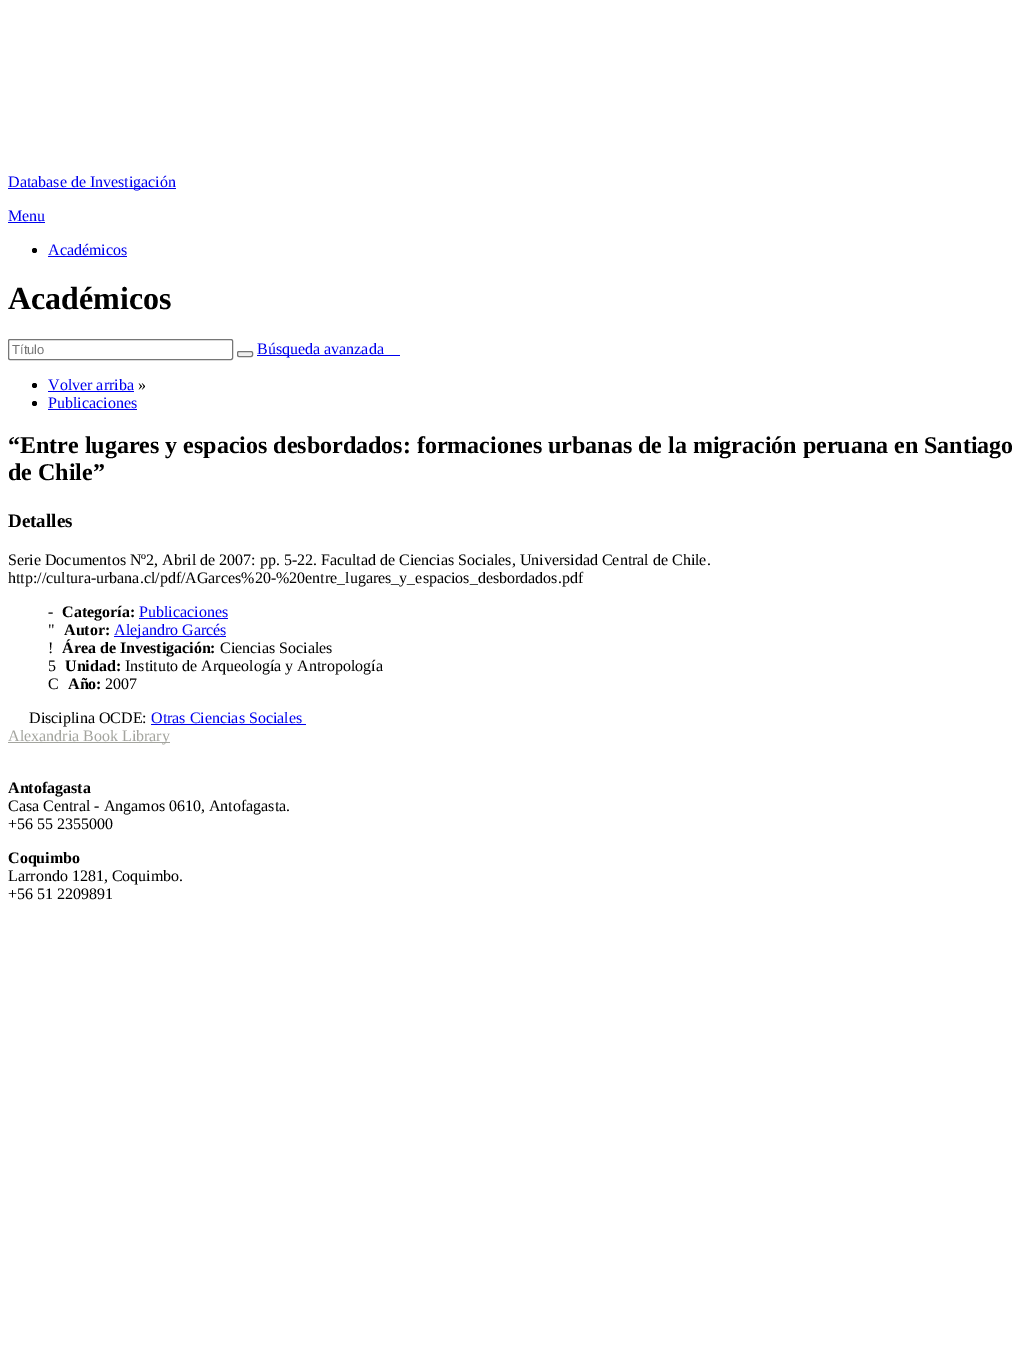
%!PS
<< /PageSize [1023 1372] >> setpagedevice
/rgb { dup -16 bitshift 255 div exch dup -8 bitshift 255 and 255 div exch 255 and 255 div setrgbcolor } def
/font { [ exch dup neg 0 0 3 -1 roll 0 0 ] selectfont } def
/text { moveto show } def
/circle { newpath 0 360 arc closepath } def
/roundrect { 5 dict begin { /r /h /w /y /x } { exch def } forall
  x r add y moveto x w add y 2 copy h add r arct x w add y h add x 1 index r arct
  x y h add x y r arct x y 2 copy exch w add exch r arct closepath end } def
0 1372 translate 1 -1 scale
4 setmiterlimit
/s1 { /LiberationSerif-Regular 16 font 16#0000EE rgb } def
/s2 { /LiberationSerif-Bold 32 font 16#000000 rgb } def
/s3 { /LiberationSans-Regular 13 font 16#757575 rgb } def
/s4 { /LiberationSerif-Regular 16 font 16#000000 rgb } def
/s5 { /LiberationSerif-Bold 24 font 16#000000 rgb } def
/s6 { /LiberationSerif-Bold 19 font 16#000000 rgb } def
/s7 { /LiberationSerif-Bold 16 font 16#000000 rgb } def
/s8 { /LiberationSerif-Regular 16 font 16#A3A49E rgb } def
16#FFFFFF rgb
0 0 1023 1372 rectfill
16#0000EE rgb
8 188 168 1 rectfill
s1
(Database de Investigación) 8 187 text
(Menu) 8 221 text
8 222 37 1 rectfill
16#000000 rgb
34.5 250.5 2.5 circle fill
s1
(Académicos) 48 255 text
48 256 79 1 rectfill
s2
(Académicos) 8 309 text
16#767676 rgb
8.5 339.5 224 20 1.5 roundrect stroke
s3
(Título) 12 354 text
16#EFEFEF rgb
237.5 351.5 15 5 1.5 roundrect gsave fill grestore
16#767676 rgb
stroke
16#0000EE rgb
257 355 143 1 rectfill
s1
(Búsqueda avanzada) 257 354 text
16#000000 rgb
34.5 385.5 2.5 circle fill
s1
(Volver arriba) 48 390 text
48 391 86 1 rectfill
s4
(») 138 390 text
34.5 403.5 2.5 circle fill
s1
(Publicaciones) 48 408 text
48 409 89 1 rectfill
s5
(“Entre lugares y espacios desbordados: formaciones urbanas de la migración peruana en Santiago) 8 453 text
(de Chile”) 8 480 text
s6
(Detalles) 8 527 text
s4
(Serie Documentos Nº2, Abril de 2007: pp. 5-22. Facultad de Ciencias Sociales, Universidad Central de Chile.) 8 565 text
(http://cultura-urbana.cl/pdf/AGarces%20-%20entre_lugares_y_espacios_desbordados.pdf) 8 583 text
(-) 48 617 text
s7
(Categoría:) 62 617 text
s1
(Publicaciones) 139 617 text
139 618 89 1 rectfill
s4
(") 48 635 text
s7
(Autor:) 64 635 text
16#0000EE rgb
114 636 112 1 rectfill
s1
(Alejandro Garcés) 114 635 text
s4
(!) 48 653 text
s7
(Área de Investigación:) 62 653 text
s4
(Ciencias Sociales) 220 653 text
(5) 48 671 text
s7
(Unidad:) 65 671 text
s4
(Instituto de Arqueología y Antropología) 125 671 text
(C) 48 689 text
s7
(Año:) 68 689 text
s4
(2007) 105 689 text
(Disciplina OCDE:) 29 723 text
s1
(Otras Ciencias Sociales) 151 723 text
151 724 155 1 rectfill
16#A3A49E rgb
8 742 162 1 rectfill
(Alexandria Book Library) 8 741 text
s7
(Antofagasta) 8 793 text
s4
(Casa Central - Angamos 0610, Antofagasta.) 8 811 text
(+56 55 2355000) 8 829 text
s7
(Coquimbo) 8 863 text
s4
(Larrondo 1281, Coquimbo.) 8 881 text
(+56 51 2209891) 8 899 text
showpage
